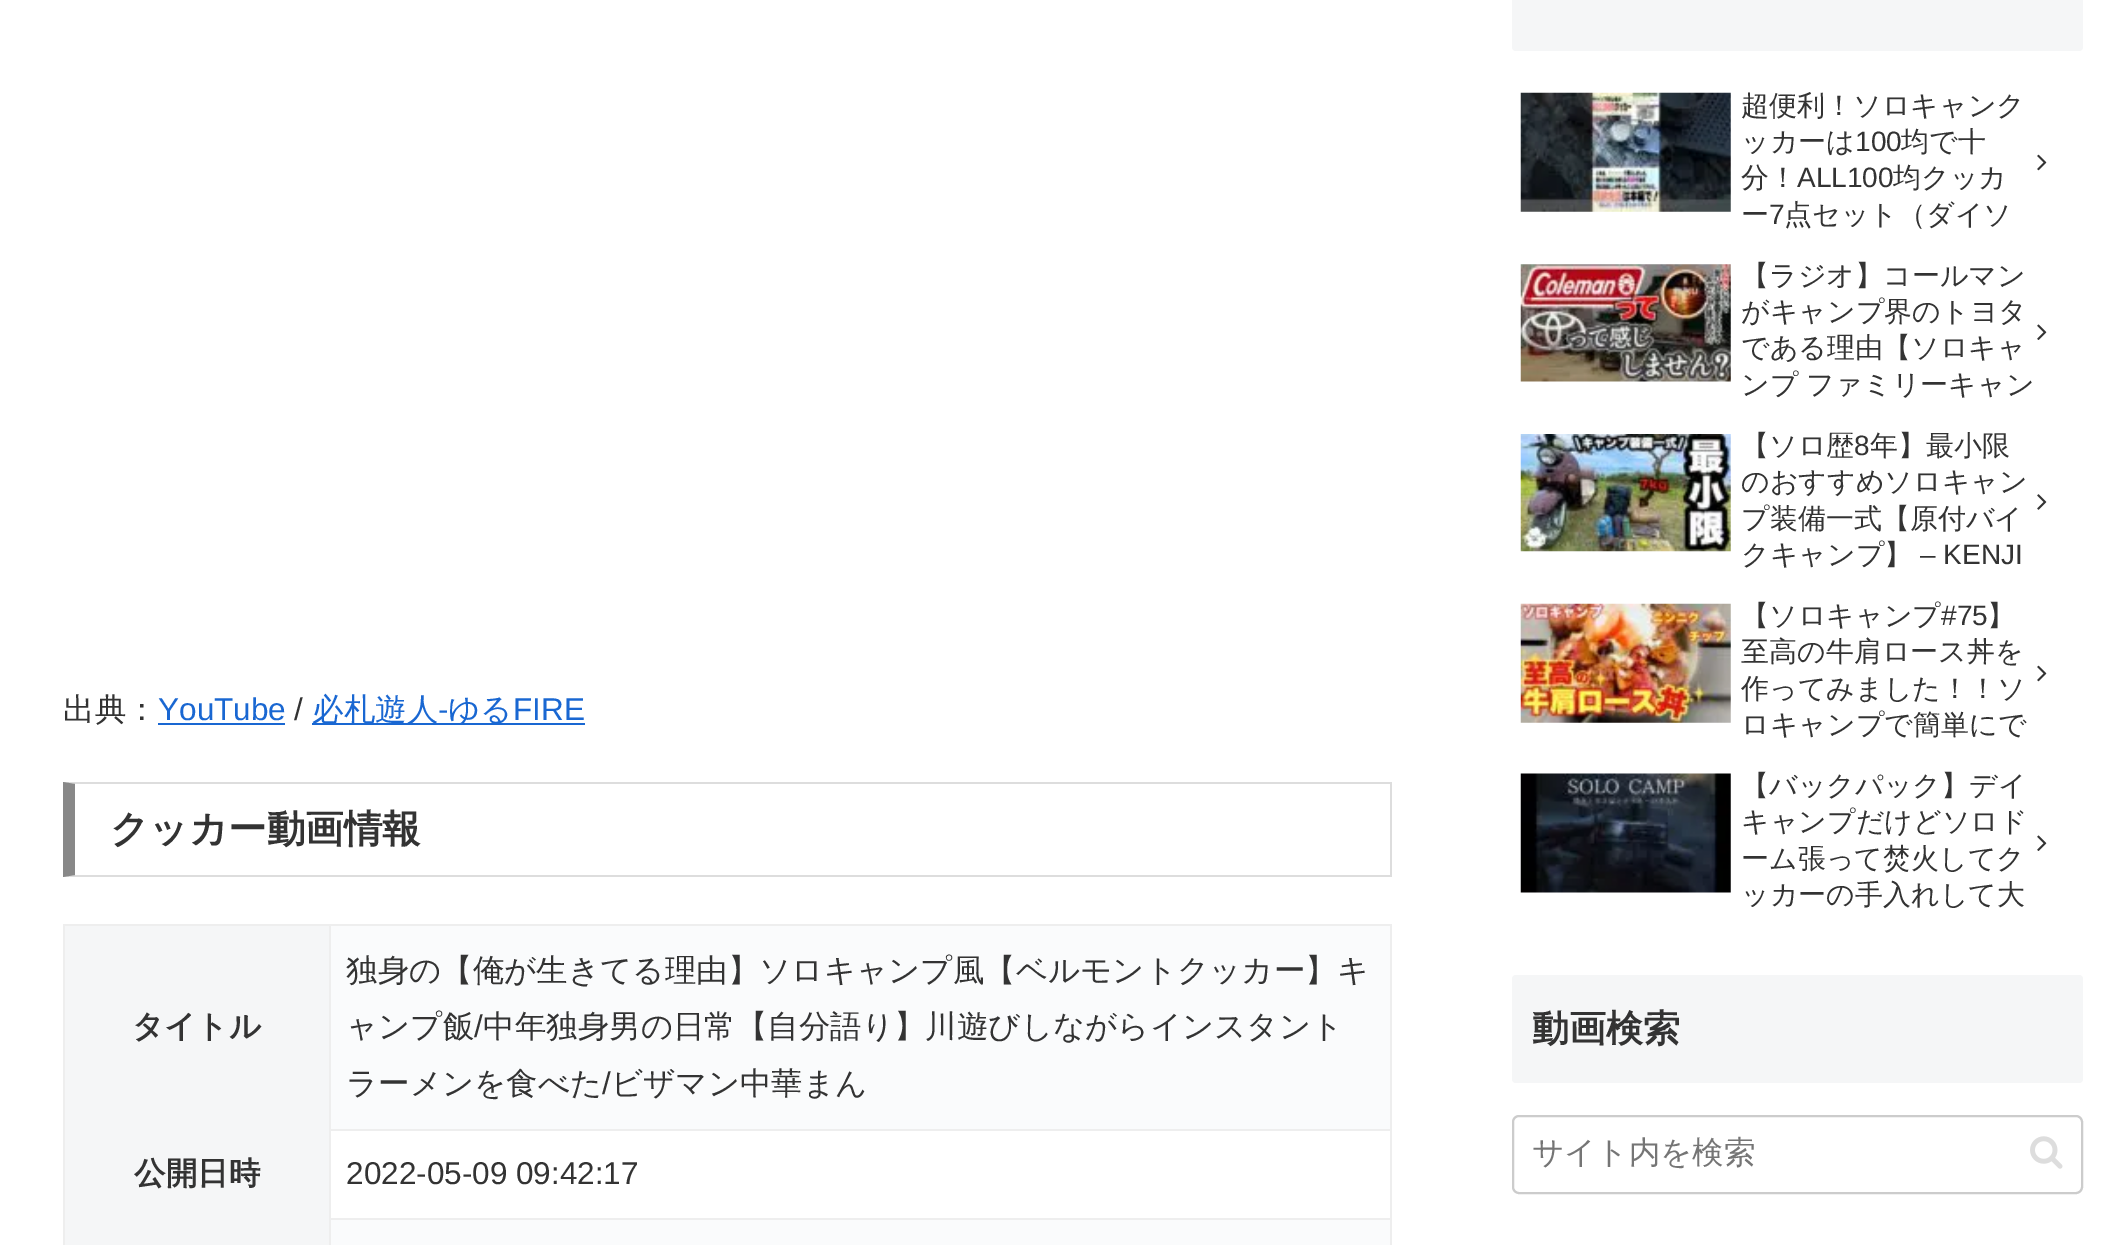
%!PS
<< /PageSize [2125 1245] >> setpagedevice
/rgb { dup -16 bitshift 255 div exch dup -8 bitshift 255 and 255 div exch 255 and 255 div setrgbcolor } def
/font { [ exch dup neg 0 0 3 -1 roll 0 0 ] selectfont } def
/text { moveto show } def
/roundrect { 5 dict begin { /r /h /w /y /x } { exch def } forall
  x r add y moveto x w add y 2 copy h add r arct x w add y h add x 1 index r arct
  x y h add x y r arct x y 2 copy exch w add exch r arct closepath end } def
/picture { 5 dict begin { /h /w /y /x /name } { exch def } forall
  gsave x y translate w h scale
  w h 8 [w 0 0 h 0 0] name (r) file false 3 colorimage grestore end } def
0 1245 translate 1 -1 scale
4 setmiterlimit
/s1 { /WenQuanYiZenHei-Medium 31.5 font 16#333333 rgb } def
/s2 { /LiberationSans-Regular 31.5 font 16#1967D2 rgb } def
/s3 { /LiberationSans-Regular 31.5 font 16#333333 rgb } def
/s4 { /WenQuanYiZenHei-Medium 31.5 font 16#1967D2 rgb } def
/s5 { /WenQuanYiZenHei-Bold 38.5 font 16#333333 rgb } def
/s6 { /WenQuanYiZenHei-Bold 31.5 font 16#333333 rgb } def
/s7 { /WenQuanYiZenHei-Medium 28 font 16#333333 rgb } def
/s8 { /LiberationSans-Regular 28 font 16#333333 rgb } def
/s9 { /WenQuanYiZenHei-Bold 37 font 16#333333 rgb } def
/s10 { /WenQuanYiZenHei-Medium 31.5 font 16#757575 rgb } def
16#FFFFFF rgb
0 0 2125 1245 rectfill
s1
(出典：) 63 720 text
s2
(YouTube) 158 720 text
158 723 127 2 rectfill
s3
(/) 294 720 text
16#1967D2 rgb
312 723 273 2 rectfill
s4
(必札遊人) 312 720 text
s2
(‐) 438 720 text
s4
(ゆる) 448 720 text
s2
(FIRE) 513 720 text
16#DDDDDD rgb
63 782 moveto 1391 782 lineto 1390 784 lineto 75 784 lineto closepath fill
1390 782 2 95 rectfill
1391 877 moveto 63 877 lineto 75 875 lineto 1390 875 lineto closepath fill
16#888888 rgb
63 877 moveto 63 782 lineto 75 784 lineto 75 875 lineto closepath fill
s5
(クッカー動画情報) 110 842 text
16#FAFBFC rgb
331 926 1059 203 rectfill
16#EEEEEE rgb
329 924 1062 2 rectfill
329 1129 1062 2 rectfill
329 1218 1062 2 rectfill
329 1218 2 27 rectfill
329 1129 2 91 rectfill
329 924 2 207 rectfill
63 924 268 2 rectfill
63 1129 2 116 rectfill
63 924 2 207 rectfill
16#F5F6F7 rgb
65 926 264 319 rectfill
s6
(タイトル) 132 1037 text
16#EEEEEE rgb
1390 1218 2 27 rectfill
1390 1129 2 91 rectfill
1390 924 2 207 rectfill
s1
(独身の【俺が生きてる理由】ソロキャンプ風【ベルモントクッカー】キ) 346 981 text
(ャンプ飯) 346 1037 text
s3
(/) 474 1037 text
s1
(中年独身男の日常【自分語り】川遊びしながらインスタント) 483 1037 text
(ラーメンを食べた) 346 1094 text
s3
(/) 602 1094 text
s1
(ビザマン中華まん) 611 1094 text
16#FAFBFC rgb
331 1220 1059 25 rectfill
s6
(公開日時) 134 1184 text
s3
(2022-05-09 09:42:17) 346 1184 text
16#F5F6F7 rgb
1512 -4 571 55 4 roundrect fill
(pic1.raw) 1520 92 211 120 picture
s7
(超便利！ソロキャンク) 1741 115 text
(ッカーは) 1741 151 text
s8
(100) 1855 151 text
s7
(均で十) 1901 151 text
(分！) 1741 187 text
s8
(ALL100) 1797 187 text
s7
(均クッカ) 1893 187 text
(ー) 1741 224 text
s8
(7) 1769 224 text
s7
(点セット（ダイソ) 1784 224 text
(pic2.raw) 2037 154 10 17 picture
(pic3.raw) 1520 264 211 118 picture
(【ラジオ】コールマン) 1741 285 text
(がキャンプ界のトヨタ) 1741 321 text
(である理由【ソロキャ) 1741 357 text
1741 394 moveto -1 0 32 (ンプ ファミリーキャン) widthshow
(pic4.raw) 2037 324 10 16 picture
(pic5.raw) 1520 434 211 118 picture
(【ソロ歴) 1741 455 text
s8
(8) 1854 455 text
s7
(年】最小限) 1870 455 text
(のおすすめソロキャン) 1741 491 text
(プ装備一式【原付バイ) 1741 528 text
(クキャンプ】) 1741 564 text
s8
(– KENJI) 1920 564 text
(pic6.raw) 2037 494 10 16 picture
(pic7.raw) 1520 603 211 120 picture
s7
(【ソロキャンプ) 1741 625 text
s8
(#75) 1941 625 text
s7
(】) 1987 625 text
(至高の牛肩ロース丼を) 1741 661 text
(作ってみました！！ソ) 1741 698 text
(ロキャンプで簡単にで) 1741 734 text
(pic2.raw) 2037 665 10 17 picture
(pic8.raw) 1520 773 211 120 picture
(【バックパック】デイ) 1741 795 text
(キャンプだけどソロド) 1741 831 text
(ーム張って焚火してク) 1741 868 text
(ッカーの手入れして大) 1741 904 text
(pic4.raw) 2037 835 10 16 picture
16#F5F6F7 rgb
1512 975 571 108 4 roundrect fill
s9
(動画検索) 1532 1041 text
16#CCCCCC rgb
2 setlinewidth
1513 1116 569 77 6 roundrect stroke
s10
(サイト内を検索) 1532 1163 text
(pic9.raw) 2030 1136 33 33 picture
showpage
